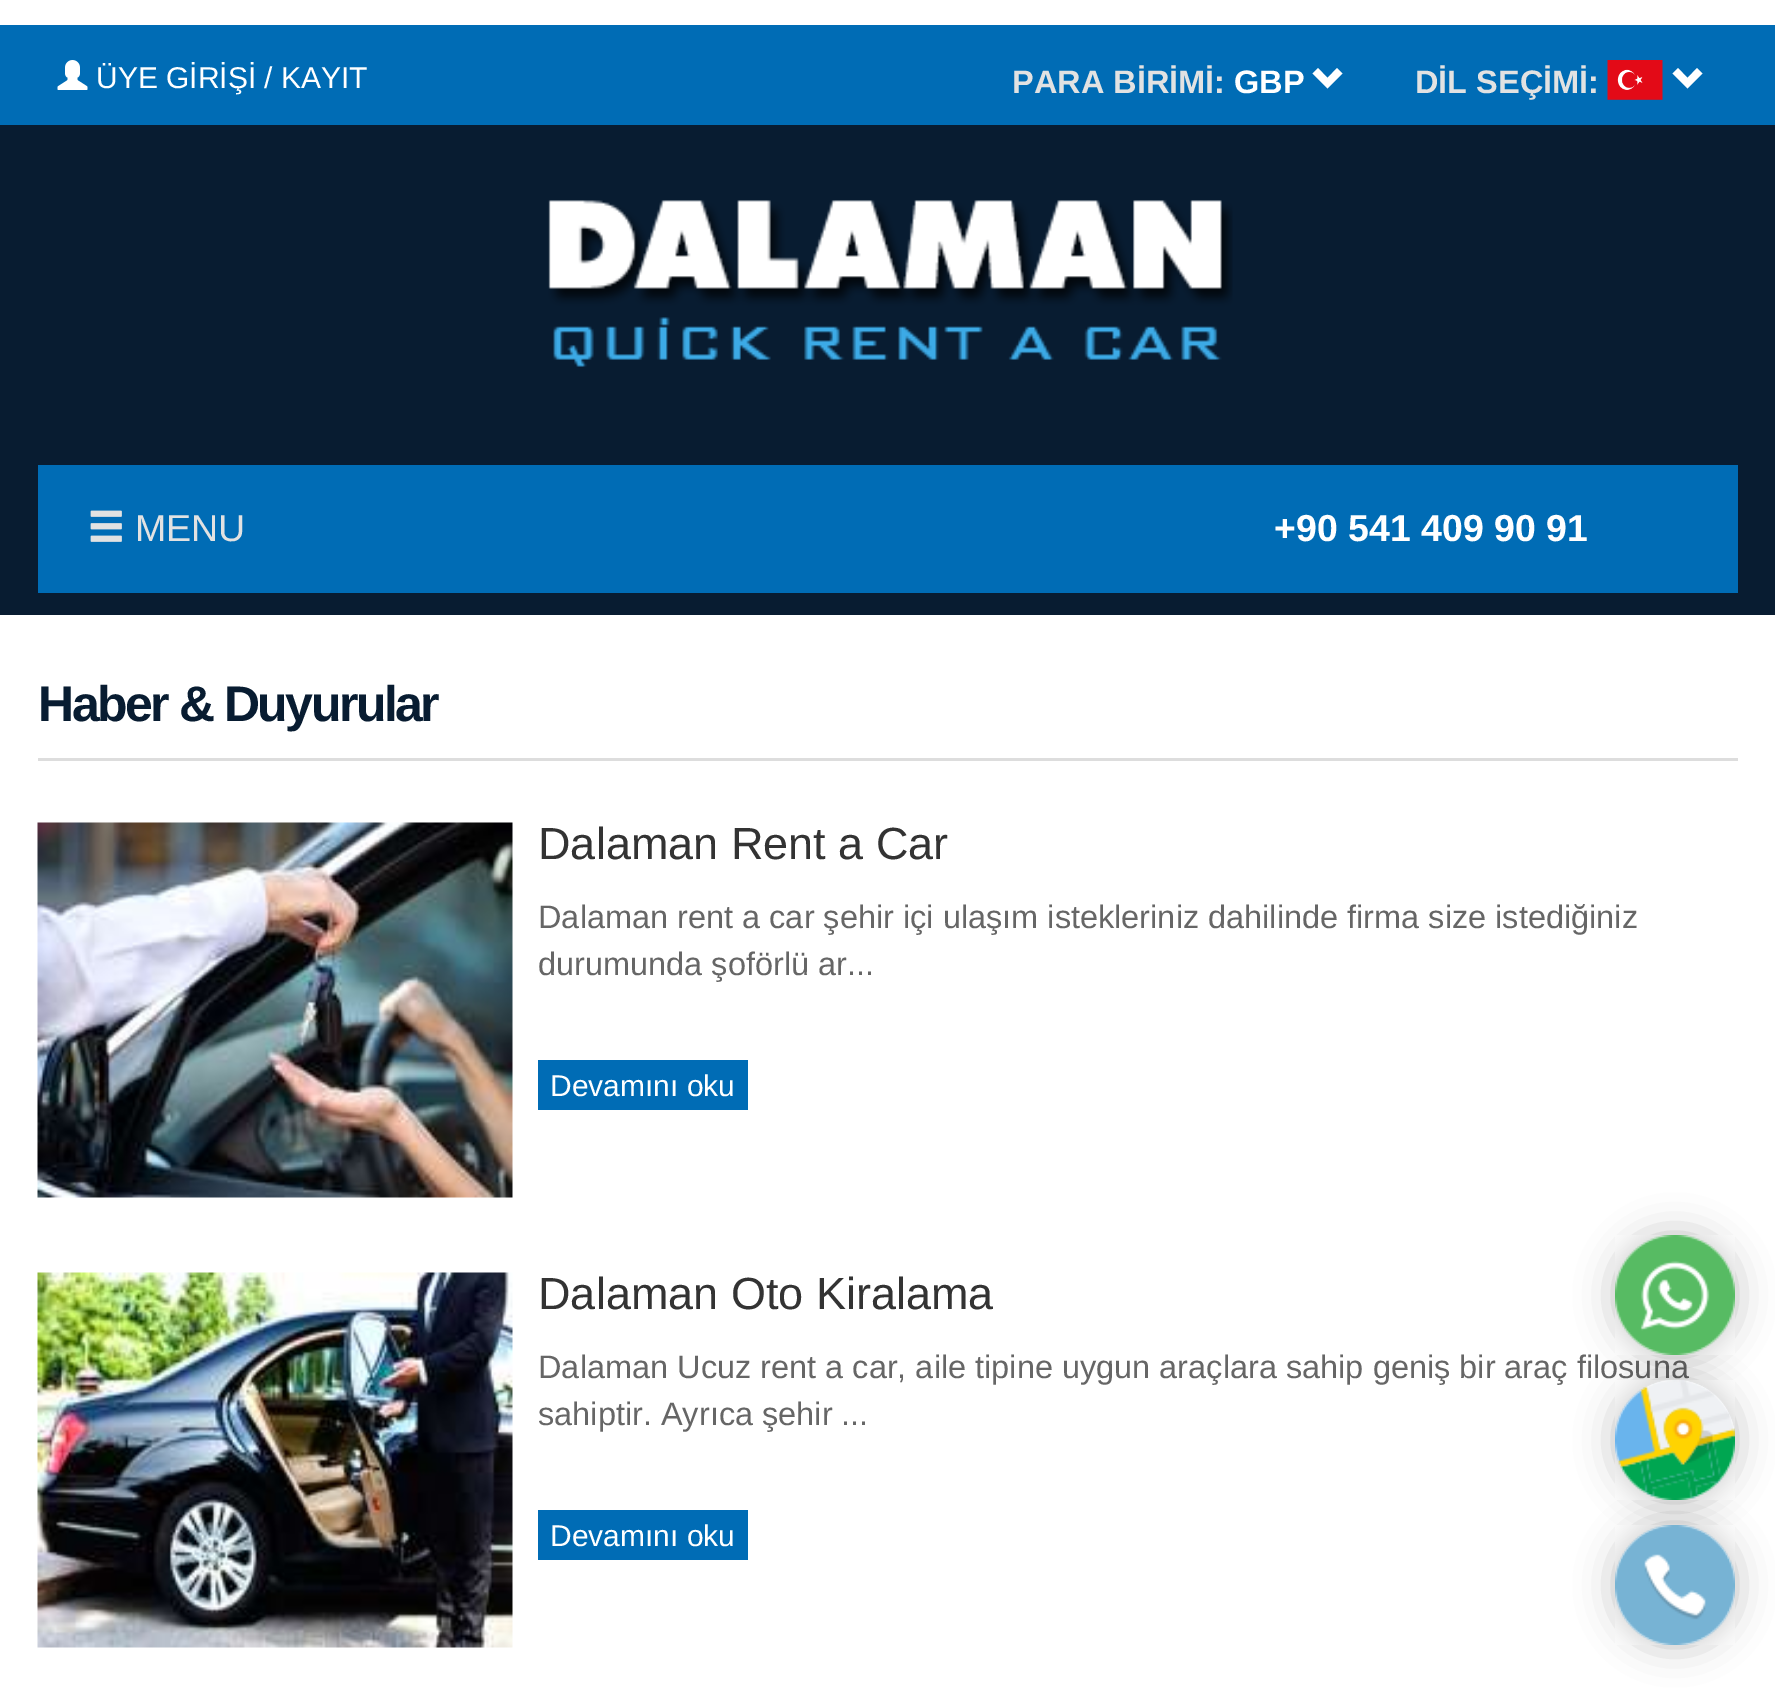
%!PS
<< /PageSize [1775 1695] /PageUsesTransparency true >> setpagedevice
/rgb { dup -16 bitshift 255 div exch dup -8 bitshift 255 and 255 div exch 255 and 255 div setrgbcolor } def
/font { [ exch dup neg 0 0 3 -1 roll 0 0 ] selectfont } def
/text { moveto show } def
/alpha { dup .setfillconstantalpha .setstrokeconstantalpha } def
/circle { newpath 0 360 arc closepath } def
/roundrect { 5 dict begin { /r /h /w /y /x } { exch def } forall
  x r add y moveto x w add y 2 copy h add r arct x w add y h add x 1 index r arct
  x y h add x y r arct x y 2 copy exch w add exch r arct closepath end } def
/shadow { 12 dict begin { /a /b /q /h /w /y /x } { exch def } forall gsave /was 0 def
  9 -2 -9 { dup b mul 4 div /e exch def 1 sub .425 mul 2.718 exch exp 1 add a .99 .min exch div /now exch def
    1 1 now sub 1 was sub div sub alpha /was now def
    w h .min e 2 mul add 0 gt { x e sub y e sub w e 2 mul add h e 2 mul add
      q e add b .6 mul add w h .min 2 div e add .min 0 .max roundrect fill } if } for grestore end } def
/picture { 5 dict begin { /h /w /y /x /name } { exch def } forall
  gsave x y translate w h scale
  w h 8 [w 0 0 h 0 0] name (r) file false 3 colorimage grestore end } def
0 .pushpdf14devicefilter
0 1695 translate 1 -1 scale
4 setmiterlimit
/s1 { /LiberationSans-Regular 30 font 16#FFFFFF rgb } def
/s2 { /LiberationSans-Bold 32.5 font 16#E2E2E2 rgb } def
/s3 { /LiberationSans-Bold 32.5 font 16#FFFFFF rgb } def
/s4 { /LiberationSans-Regular 37.5 font 16#E2E2E2 rgb } def
/s5 { /LiberationSans-Bold 37.5 font 16#FFFFFF rgb } def
/s6 { /LiberationSans-Regular 45 font 16#333333 rgb } def
/s7 { /LiberationSans-Regular 32.5 font 16#666666 rgb } def
16#FFFFFF rgb
0 0 1775 1695 rectfill
16#006CB5 rgb
0 25 1775 100 rectfill
(pic1.raw) 57 60 31 30 picture
s1
(ÜYE GİRİŞİ / KAYIT) 96 88 text
s2
(PARA BİRİMİ:) 1012 93 text
s3
(GBP) 1234 93 text
1342.5 73.5 moveto 1327.5 88.5 lineto 1312.5 73.5 lineto 1318 68 lineto 1327.5 78 lineto 1337 68 lineto closepath fill
s2
(DİL SEÇİMİ:) 1415 93 text
(pic2.raw) 1607 60 56 40 picture
16#FFFFFF rgb
1702.5 73.5 moveto 1687.5 88.5 lineto 1672.5 73.5 lineto 1678 68 lineto 1687.5 78 lineto 1697 68 lineto closepath fill
16#081C31 rgb
0 125 1775 490 rectfill
(pic3.raw) 548 200 685 167 picture
16#006CB5 rgb
38 465 1700 128 rectfill
(pic4.raw) 90 510 32 32 picture
s4
(MENU) 135 541 text
s5
(+90 541 409 90 91) 1274 541 text
16#DDDDDD rgb
38 758 1700 3 rectfill
/LiberationSans-Bold 50 font
16#081C31 rgb
38 721 moveto -2.5 0 (Haber & Duyurular) ashow
(pic5.raw) 37 822 476 376 picture
s6
(Dalaman Rent a Car) 538 859 text
s7
(Dalaman rent a car şehir içi ulaşım istekleriniz dahilinde firma size istediğiniz) 538 928 text
(durumunda şoförlü ar...) 538 975 text
16#006CB5 rgb
538 1060 210 50 rectfill
s1
(Devamını oku) 550 1096 text
(pic6.raw) 37 1272 476 376 picture
s6
(Dalaman Oto Kiralama) 538 1309 text
s7
(Dalaman Ucuz rent a car, aile tipine uygun araçlara sahip geniş bir araç filosuna) 538 1378 text
(sahiptir. Ayrıca şehir ...) 538 1425 text
16#006CB5 rgb
538 1510 210 50 rectfill
s1
(Devamını oku) 550 1546 text
16#000000 rgb
1615 1235 120 120 60 19 0.25 shadow
16#FFFFFF rgb
1675 1295 60 circle fill
16#000000 rgb
1615 1380 120 120 60 19 0.25 shadow
(pic7.raw) 1615 1235 120 120 picture
16#FFFFFF rgb
1675 1440 60 circle fill
16#000000 rgb
1615 1525 120 120 60 19 0.25 shadow
(pic8.raw) 1615 1380 120 120 picture
16#FFFFFF rgb
1675 1585 60 circle fill
(pic9.raw) 1615 1525 120 120 picture
.poppdf14devicefilter showpage
